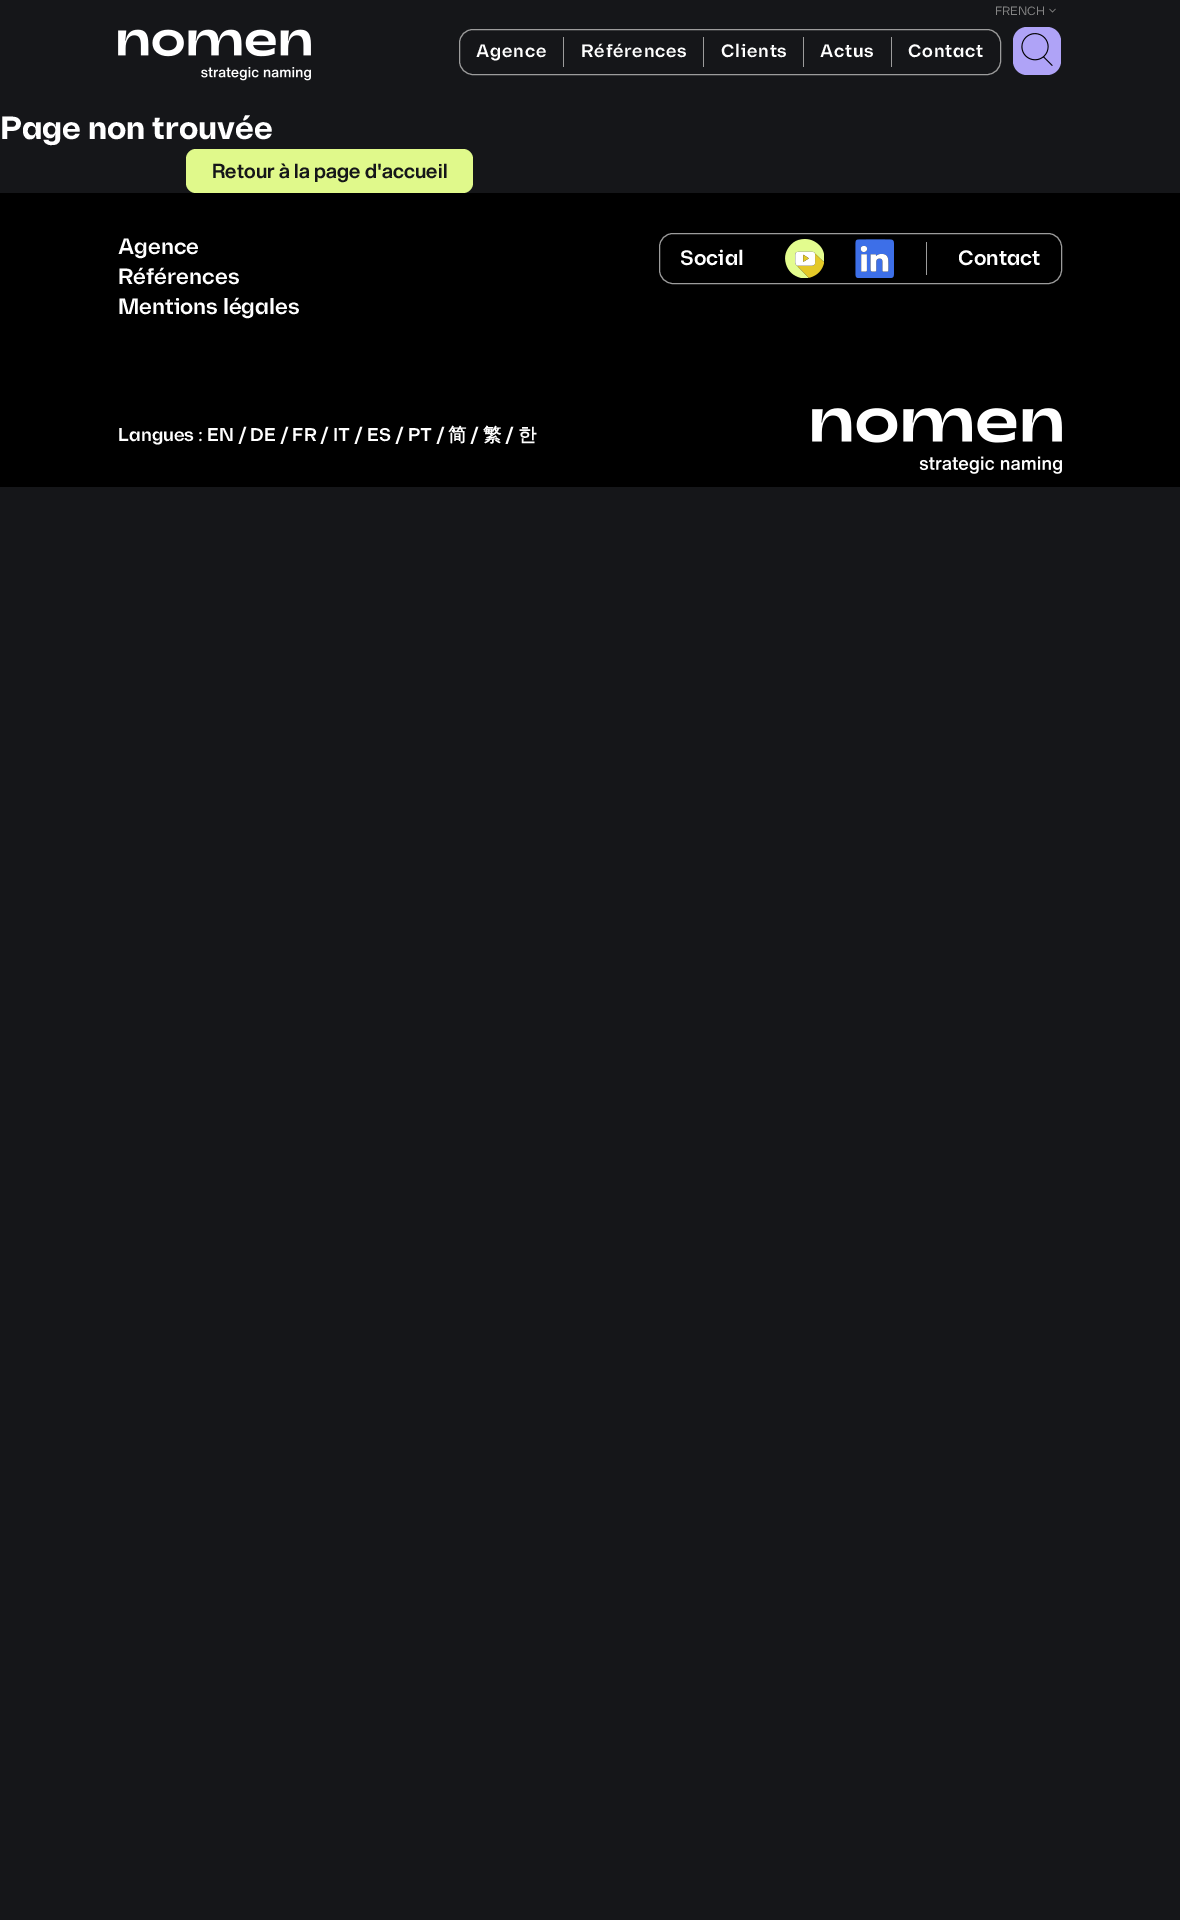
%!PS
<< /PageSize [1180 1920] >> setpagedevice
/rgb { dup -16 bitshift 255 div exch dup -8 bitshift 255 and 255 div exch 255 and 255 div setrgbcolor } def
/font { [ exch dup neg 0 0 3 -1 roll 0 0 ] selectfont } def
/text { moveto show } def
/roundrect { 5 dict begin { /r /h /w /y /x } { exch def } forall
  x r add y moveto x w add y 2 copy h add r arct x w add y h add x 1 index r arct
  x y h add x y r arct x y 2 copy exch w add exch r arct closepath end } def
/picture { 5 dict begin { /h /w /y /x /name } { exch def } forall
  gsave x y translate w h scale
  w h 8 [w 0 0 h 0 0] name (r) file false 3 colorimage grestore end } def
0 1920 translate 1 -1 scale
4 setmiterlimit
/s1 { /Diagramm-Regular 12 font 16#858585 rgb } def
/s2 { /Diagramm-Bold 32 font 16#FFFFFF rgb } def
/s3 { /Diagramm-SemiBold 22 font 16#FFFFFF rgb } def
/s4 { /Diagramm-SemiBold 21 font 16#FFFFFF rgb } def
/s5 { /Diagramm-SemiBold 18.4 font 16#FFFFFF rgb } def
/s6 { /WenQuanYiZenHei-Bold 18.4 font 16#FFFFFF rgb } def
16#151619 rgb
0 0 1180 1920 rectfill
(pic1.raw) 118 29 193 52 picture
s1
(FRENCH) 995 15 text
0.6 setlinewidth
1055.5 9 moveto 1052.5 12 lineto 1049.5 9 lineto stroke
16#9C9C9C rgb
1 setlinewidth
459.5 29.5 541 45 13.5 roundrect stroke
/Diagramm-SemiBold 18 font
16#FFFFFF rgb
476 57 moveto 0.75 0 (Agence) ashow
16#9C9C9C rgb
563 37 1 30 rectfill
16#FFFFFF rgb
581 57 moveto 0.75 0 (Références) ashow
16#9C9C9C rgb
703 37 1 30 rectfill
16#FFFFFF rgb
721 57 moveto 0.75 0 (Clients) ashow
16#9C9C9C rgb
803 37 1 30 rectfill
16#FFFFFF rgb
820 57 moveto 0.75 0 (Actus) ashow
16#9C9C9C rgb
891 37 1 30 rectfill
16#FFFFFF rgb
908 57 moveto 0.75 0 (Contact) ashow
16#AFA3F7 rgb
1013 27 48 48 14 roundrect fill
(pic2.raw) 1021 33 32 33 picture
s2
(Page non trouvée) 0 139 text
16#E0F98B rgb
186 149 287 44 10 roundrect fill
/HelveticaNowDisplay-Bold 20 font
16#151619 rgb
212 178 moveto 0.1 0 (Retour à la page d'accueil) ashow
16#000000 rgb
0 193 1180 294 rectfill
s3
(Agence) 118 254 text
(Références) 118 284 text
(Mentions légales) 118 314 text
16#9C9C9C rgb
659.5 233.5 402 50 13.5 roundrect stroke
s4
(Social) 680 265 text
(pic3.raw) 785 239 39 39 picture
(pic4.raw) 855 239 39 39 picture
16#9C9C9C rgb
926 242 1 33 rectfill
s4
(Contact) 958 265 text
s5
(Langues : EN / DE / FR / IT / ES / PT /) 118 441 text
s6
(简) 448 441 text
s5
(/) 470 441 text
s6
(繁) 483 441 text
s5
(/) 505 441 text
s6
(한) 518 441 text
(pic5.raw) 812 408 250 66 picture
showpage
